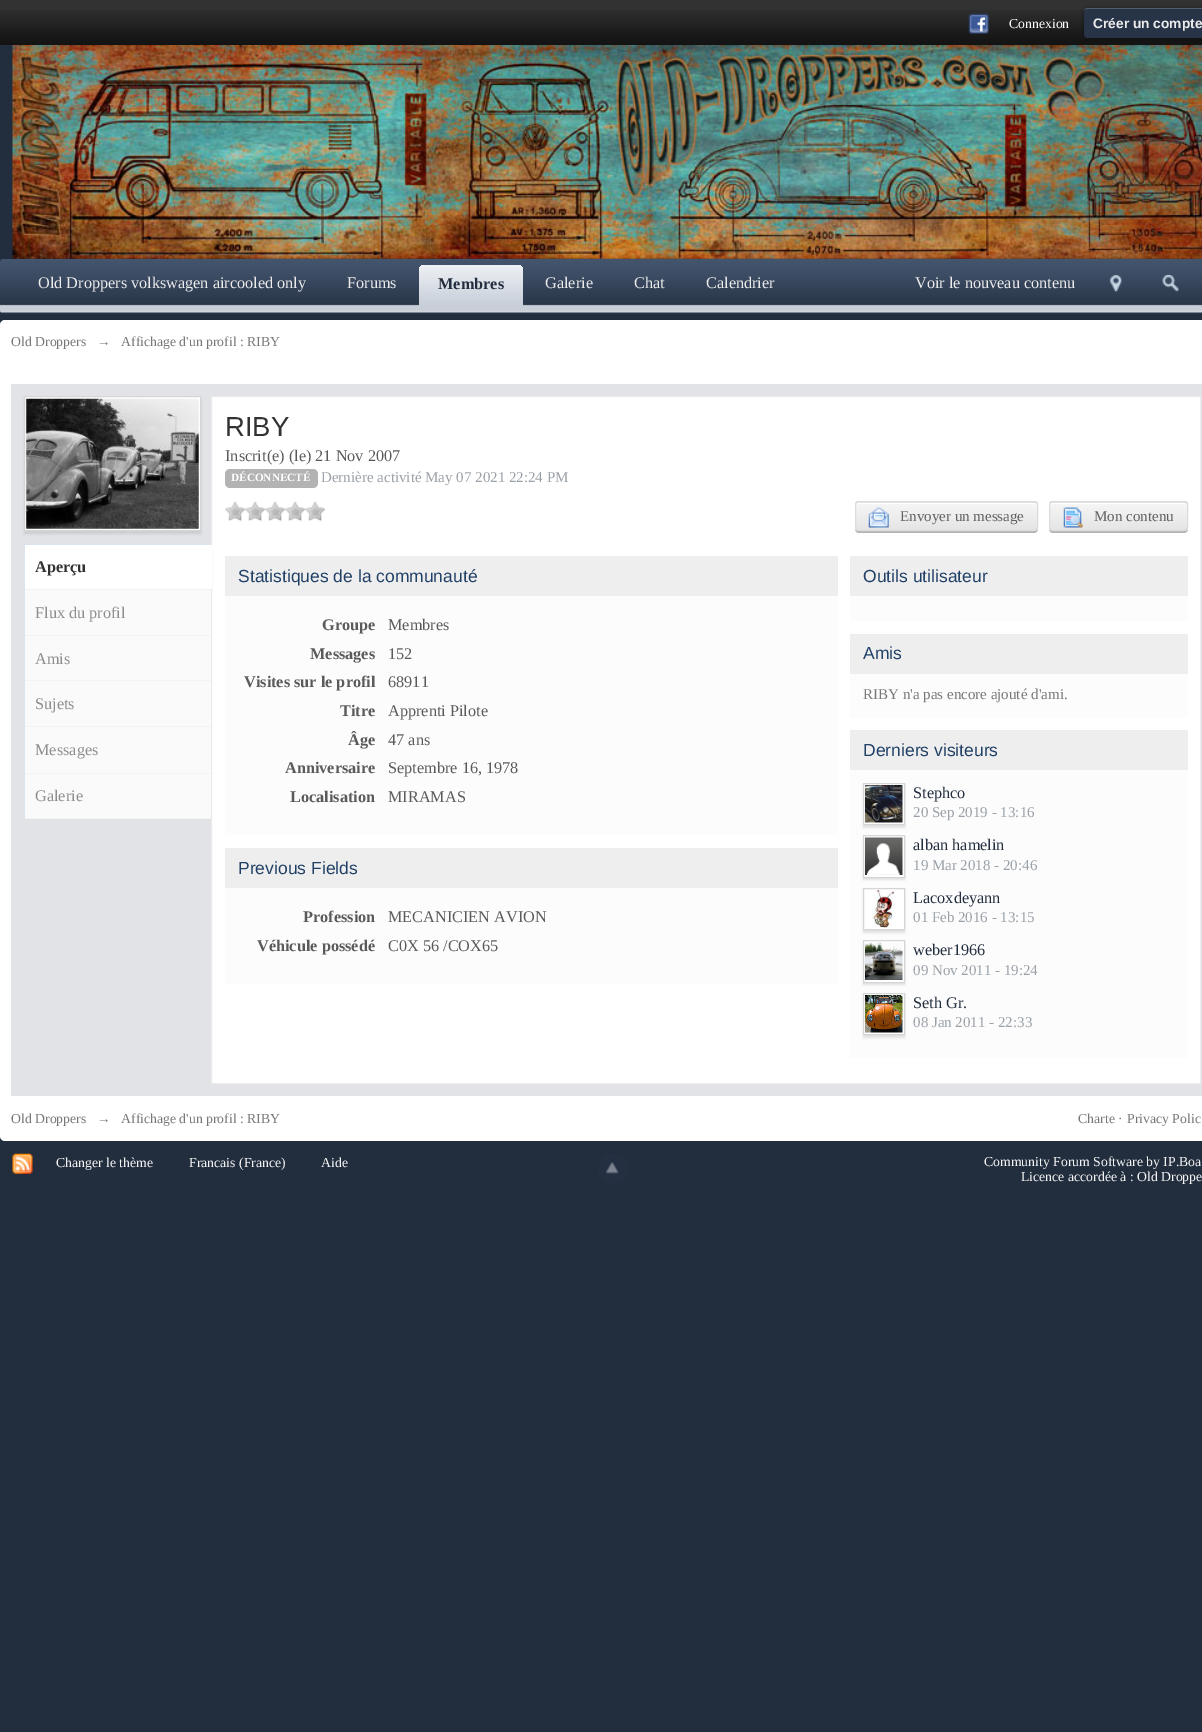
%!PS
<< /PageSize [1202 1732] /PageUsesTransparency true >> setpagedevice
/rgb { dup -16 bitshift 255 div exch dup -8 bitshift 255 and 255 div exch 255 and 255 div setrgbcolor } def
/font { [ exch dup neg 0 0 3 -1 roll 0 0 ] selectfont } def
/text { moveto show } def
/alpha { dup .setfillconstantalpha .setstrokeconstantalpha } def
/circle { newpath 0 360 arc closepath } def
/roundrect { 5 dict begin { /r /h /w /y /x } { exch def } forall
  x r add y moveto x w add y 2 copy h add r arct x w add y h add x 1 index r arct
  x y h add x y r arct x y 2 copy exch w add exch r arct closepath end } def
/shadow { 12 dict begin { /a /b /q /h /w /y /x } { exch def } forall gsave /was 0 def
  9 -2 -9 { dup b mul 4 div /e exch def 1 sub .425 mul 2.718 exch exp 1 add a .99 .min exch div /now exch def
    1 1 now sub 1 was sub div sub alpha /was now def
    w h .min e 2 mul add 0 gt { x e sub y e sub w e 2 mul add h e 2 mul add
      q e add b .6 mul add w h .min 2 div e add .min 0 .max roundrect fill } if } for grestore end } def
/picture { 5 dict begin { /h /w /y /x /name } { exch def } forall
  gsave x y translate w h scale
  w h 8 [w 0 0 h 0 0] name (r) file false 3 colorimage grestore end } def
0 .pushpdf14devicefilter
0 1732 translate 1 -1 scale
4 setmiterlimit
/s1 { /LiberationSerif-Regular 13.75 font 16#FFFFFF rgb } def
/s2 { /LiberationSans-Bold 13.75 font 16#EBEBEB rgb } def
/s3 { /LiberationSerif-Regular 16.25 font 16#EBEBEB rgb } def
/s4 { /LiberationSerif-Bold 16.25 font 16#222E3E rgb } def
/s5 { /LiberationSerif-Regular 13.75 font 16#777777 rgb } def
/s6 { /LiberationSerif-Bold 16.25 font 16#323232 rgb } def
/s7 { /LiberationSerif-Regular 16.25 font 16#8D8D8D rgb } def
/s8 { /LiberationSans-Regular 27.5 font 16#323232 rgb } def
/s9 { /LiberationSerif-Regular 16.25 font 16#5A5A5A rgb } def
/s10 { /LiberationSerif-Bold 11.25 font 16#FFFFFF rgb } def
/s11 { /LiberationSerif-Regular 15 font 16#9AA1A8 rgb } def
/s12 { /LiberationSerif-Regular 15 font 16#616161 rgb } def
/s13 { /LiberationSans-Regular 17.5 font 16#204066 rgb } def
/s14 { /LiberationSerif-Bold 16.25 font 16#5A5A5A rgb } def
/s15 { /LiberationSerif-Regular 15 font 16#777777 rgb } def
/s16 { /LiberationSerif-Regular 16.25 font 16#222E3E rgb } def
/s17 { /LiberationSerif-Regular 13.75 font 16#F5F5F5 rgb } def
16#222E3E rgb
0 0 1202 1732 rectfill
16#323232 rgb
0 0 1202 10 rectfill
(pic1.raw) 0 10 1202 35 picture
(pic2.raw) 968 13 21 21 picture
s1
(Connexion) 1009 28 text
16#000000 rgb
1084 9 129 30 4 2.5 0.4 shadow
16#273447 rgb
1084 8 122 30 4 roundrect fill
0.2 alpha
16#FFFFFF rgb
1088 9 moveto 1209 9 lineto 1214 9 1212 17 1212 20 curveto 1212 37 lineto 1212 36 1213 35 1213 34 curveto 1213 12 lineto 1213 10 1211 8 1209 8 curveto 1088 8 lineto 1086 8 1085 9 1084 10 curveto 1085 9 1086 9 1088 9 curveto closepath fill
1 alpha
s2
(Créer un compte) 1093 28 text
(pic3.raw) 12 45 1190 214 picture
16#273447 rgb
0 259 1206 55 4 roundrect fill
(pic4.raw) 0 259 1202 54 picture
s3
(Old Droppers volkswagen aircooled only) 38 288 text
(Forums) 347 288 text
gsave 425 265 moveto 517 265 lineto 520.5 265 523 267.5 523 271 curveto 523 306 lineto 419 306 lineto 419 271 lineto 419 267.5 421.5 265 425 265 curveto closepath clip newpath
<< /ShadingType 2 /ColorSpace /DeviceRGB /Coords [419 265 419 306] /Extend [true true] /Function << /FunctionType 2 /Domain [0 1] /C0 [0.933 0.945 0.961] /C1 [0.78 0.808 0.847] /N 1 >> >> shfill grestore
s4
(Membres) 438 289 text
s3
(Galerie) 545 288 text
(Chat) 634 288 text
(Calendrier) 706 288 text
(Voir le nouveau contenu) 915 288 text
(pic5.raw) 1109 275 13 17 picture
(pic6.raw) 1162 275 17 17 picture
16#FFFFFF rgb
0 320 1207 821 5 roundrect fill
s5
(Old Droppers) 11 346 text
(→) 97 346 text
(Affichage d'un profil : RIBY) 121 346 text
16#E2E3E7 rgb
11 384 1191 712 rectfill
16#000000 rgb
24 399 177 135 0 1 0.1 shadow
16#FFFFFF rgb
24.5 396.5 moveto 200.5 396.5 lineto 200.5 530.5 lineto 24.5 530.5 lineto closepath gsave fill grestore
16#D5D5D5 rgb
stroke
(pic7.raw) 26 398 173 131 picture
16#DBE4EF rgb
24 544 187 1 rectfill
24 544 1 275 rectfill
16#F3F3F3 rgb
25 589 186 1 rectfill
16#FFFFFF rgb
211.5 396.5 moveto 1200.5 396.5 lineto 1200.5 1083.5 lineto 211.5 1083.5 lineto closepath gsave fill grestore
16#EBEBEB rgb
stroke
16#FFFFFF rgb
25 545 187 44 rectfill
s6
(Aperçu) 35 572 text
16#FAFAFA rgb
25 590 186 45 rectfill
16#F3F3F3 rgb
25 635 186 1 rectfill
s7
(Flux du profil) 35 618 text
16#FAFAFA rgb
25 636 186 44 rectfill
16#F3F3F3 rgb
25 680 186 1 rectfill
s7
(Amis) 35 664 text
16#FAFAFA rgb
25 681 186 92 rectfill
16#F3F3F3 rgb
25 726 186 1 rectfill
s7
(Sujets) 35 709 text
16#F3F3F3 rgb
25 773 186 1 rectfill
s7
(Messages) 35 755 text
16#FAFAFA rgb
25 774 186 44 rectfill
16#F3F3F3 rgb
25 818 186 1 rectfill
s7
(Galerie) 35 801 text
s8
(RIBY) 225 436 text
s9
(Inscrit\(e\) \(le\) 21 Nov 2007) 225 461 text
16#B3B3B3 rgb
225 469 93 19 5 roundrect fill
s10
(DÉCONNECTÉ) 231 481 text
s11
(Dernière activité May 07 2021 22:24 PM) 321 482 text
(pic8.raw) 225 501 20 21 picture
(pic8.raw) 245 501 20 21 picture
(pic9.raw) 265 501 20 21 picture
(pic9.raw) 285 501 20 21 picture
(pic8.raw) 305 501 20 21 picture
16#B3B3B3 rgb
855 528 moveto 855 529 lineto 855 531 857 533 859 533 curveto 1034 533 lineto 1036 533 1038 531 1038 529 curveto 1038 507 lineto 1038 505 lineto 1038 528 lineto 1038 530 1036 531 1034 531 curveto 859 531 lineto 857 531 855 530 855 528 curveto closepath fill
gsave
855 501 183 30 4 roundrect clip newpath
gsave 855 501 moveto 1038 501 lineto 1038 503 lineto 855 503 lineto closepath clip newpath
<< /ShadingType 2 /ColorSpace /DeviceRGB /Coords [856 475 856 503] /Extend [true true] /Function << /FunctionType 2 /Domain [0 1] /C0 [0.965 0.965 0.965] /C1 [0.898 0.898 0.898] /N 1 >> >> shfill grestore
gsave 855 503 moveto 1038 503 lineto 1038 530 lineto 855 530 lineto closepath clip newpath
<< /ShadingType 2 /ColorSpace /DeviceRGB /Coords [856 503 856 530] /Extend [true true] /Function << /FunctionType 2 /Domain [0 1] /C0 [0.965 0.965 0.965] /C1 [0.898 0.898 0.898] /N 1 >> >> shfill grestore
grestore
16#FFFFFF rgb
859 504 moveto 1034 504 lineto 1035 504 1036 505 1036 506 curveto 1036 504 1035 503 1034 503 curveto 858 503 lineto 857 504 lineto 856 506 lineto 856 505 857 504 859 504 curveto closepath fill
16#DBDBDB rgb
855.5 501.5 182 29 3.5 roundrect stroke
(pic10.raw) 868 507 21 21 picture
s12
(Envoyer un message) 900 521 text
16#B3B3B3 rgb
1049 529 moveto 1049 531 1051 533 1053 533 curveto 1184 533 lineto 1186 533 1188 531 1188 529 curveto 1188 507 lineto 1188 505 lineto 1188 528 lineto 1188 530 1186 531 1184 531 curveto 1052 531 lineto 1051 531 1050 530 1049 529 curveto closepath fill
gsave
1049 501 139 30 4 roundrect clip newpath
gsave 1049 501 moveto 1188 501 lineto 1188 503 lineto 1049 503 lineto closepath clip newpath
<< /ShadingType 2 /ColorSpace /DeviceRGB /Coords [1050 475 1050 503] /Extend [true true] /Function << /FunctionType 2 /Domain [0 1] /C0 [0.965 0.965 0.965] /C1 [0.898 0.898 0.898] /N 1 >> >> shfill grestore
gsave 1049 503 moveto 1188 503 lineto 1188 530 lineto 1049 530 lineto closepath clip newpath
<< /ShadingType 2 /ColorSpace /DeviceRGB /Coords [1050 503 1050 530] /Extend [true true] /Function << /FunctionType 2 /Domain [0 1] /C0 [0.965 0.965 0.965] /C1 [0.898 0.898 0.898] /N 1 >> >> shfill grestore
grestore
16#FFFFFF rgb
1052 504 moveto 1184 504 lineto 1185 504 1186 505 1186 506 curveto 1186 504 1185 503 1184 503 curveto 1052 503 lineto 1051 503 1050 504 1050 506 curveto 1050 505 1051 504 1052 504 curveto closepath fill
16#DBDBDB rgb
1049.5 501.5 138 29 3.5 roundrect stroke
(pic11.raw) 1063 507 20 21 picture
s12
(Mon contenu) 1094 521 text
16#FCFCFC rgb
225 596 613 239 rectfill
16#EEEEEE rgb
225 556 613 40 rectfill
s13
(Statistiques de la communauté) 238 582 text
s14
(Groupe) 322 630 text
s9
(Membres) 388 630 text
s14
(Messages) 310 659 text
s9
(152) 388 659 text
s14
(Visites sur le profil) 244 687 text
s9
(68911) 388 687 text
s14
(Titre) 340 716 text
s9
(Apprenti Pilote) 388 716 text
s14
(Âge) 348 745 text
s9
(47 ans) 388 745 text
s14
(Anniversaire) 285 773 text
s9
(Septembre 16, 1978) 388 773 text
s14
(Localisation) 290 802 text
s9
(MIRAMAS) 388 802 text
16#FCFCFC rgb
225 888 613 96 rectfill
16#EEEEEE rgb
225 848 613 40 rectfill
s13
(Previous Fields) 238 874 text
s14
(Profession) 303 922 text
s9
(MECANICIEN AVION) 388 922 text
s14
(Véhicule possédé) 257 951 text
s9
(C0X 56 /COX65) 388 951 text
16#FCFCFC rgb
850 596 338 25 rectfill
16#EEEEEE rgb
850 556 338 40 rectfill
s13
(Outils utilisateur) 863 582 text
16#FCFCFC rgb
850 674 338 44 rectfill
16#EEEEEE rgb
850 634 338 40 rectfill
s13
(Amis) 863 659 text
s15
(RIBY n'a pas encore ajouté d'ami.) 863 699 text
16#FCFCFC rgb
850 770 338 288 rectfill
16#EEEEEE rgb
850 730 338 40 rectfill
s13
(Derniers visiteurs) 863 756 text
16#000000 rgb
863 785 42 43 0 1 0.1 shadow
16#FFFFFF rgb
863.5 783.5 moveto 904.5 783.5 lineto 904.5 824.5 lineto 863.5 824.5 lineto closepath gsave fill grestore
16#D5D5D5 rgb
stroke
(pic12.raw) 865 785 38 38 picture
s16
(Stephco) 913 798 text
s11
(20 Sep 2019 - 13:16) 913 817 text
16#000000 rgb
863 838 42 42 0 1 0.1 shadow
16#FFFFFF rgb
863.5 835.5 moveto 904.5 835.5 lineto 904.5 877.5 lineto 863.5 877.5 lineto closepath gsave fill grestore
16#D5D5D5 rgb
stroke
(pic13.raw) 865 837 38 38 picture
s16
(alban hamelin) 913 850 text
s11
(19 Mar 2018 - 20:46) 913 870 text
16#000000 rgb
863 890 42 43 0 1 0.1 shadow
16#FFFFFF rgb
863.5 888.5 moveto 904.5 888.5 lineto 904.5 929.5 lineto 863.5 929.5 lineto closepath gsave fill grestore
16#D5D5D5 rgb
stroke
(pic14.raw) 872 890 23 38 picture
s16
(Lacoxdeyann) 913 903 text
s11
(01 Feb 2016 - 13:15) 913 922 text
16#000000 rgb
863 943 42 42 0 1 0.1 shadow
16#FFFFFF rgb
863.5 940.5 moveto 904.5 940.5 lineto 904.5 982.5 lineto 863.5 982.5 lineto closepath gsave fill grestore
16#D5D5D5 rgb
stroke
(pic15.raw) 865 942 38 38 picture
s16
(weber1966) 913 955 text
s11
(09 Nov 2011 - 19:24) 913 975 text
16#000000 rgb
863 995 42 43 0 1 0.1 shadow
16#FFFFFF rgb
863.5 993.5 moveto 904.5 993.5 lineto 904.5 1034.5 lineto 863.5 1034.5 lineto closepath gsave fill grestore
16#D5D5D5 rgb
stroke
(pic16.raw) 865 995 38 38 picture
s16
(Seth Gr.) 913 1008 text
s11
(08 Jan 2011 - 22:33) 913 1027 text
s5
(Old Droppers) 11 1123 text
(→) 97 1123 text
(Affichage d'un profil : RIBY) 121 1123 text
(Charte ·) 1078 1123 text
(Privacy Polic) 1127 1123 text
(pic17.raw) 12 1153 21 21 picture
s17
(Changer le thème) 56 1167 text
(Francais \(France\)) 189 1167 text
(Aide) 321 1167 text
16#243042 rgb
613 1169 15 circle fill
(pic18.raw) 606 1162 13 12 picture
s17
(Community Forum Software by IP.Boa) 984 1166 text
(Licence accordée à : Old Droppe) 1021 1181 text
.poppdf14devicefilter showpage
